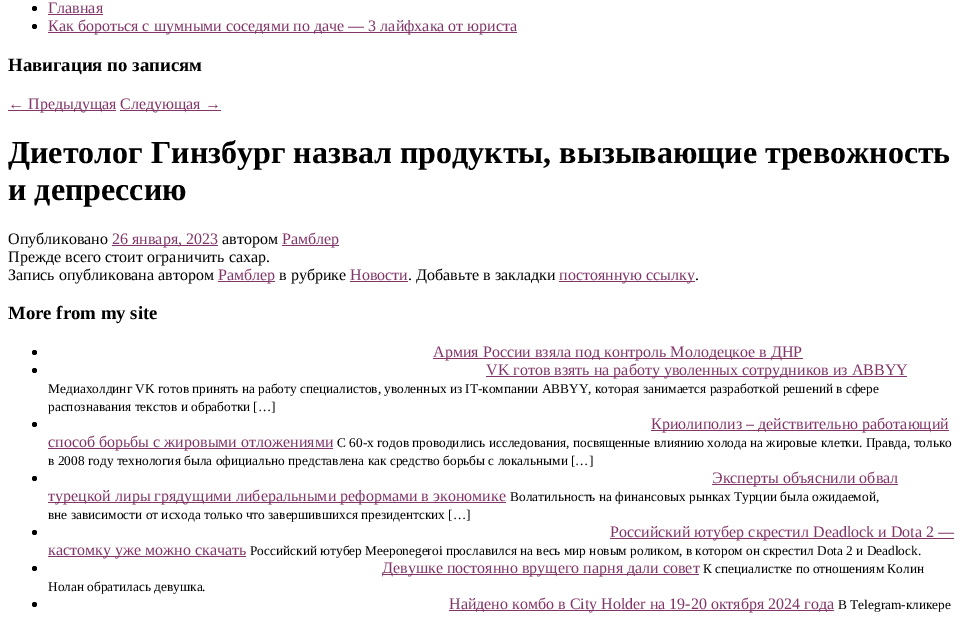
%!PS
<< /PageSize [963 620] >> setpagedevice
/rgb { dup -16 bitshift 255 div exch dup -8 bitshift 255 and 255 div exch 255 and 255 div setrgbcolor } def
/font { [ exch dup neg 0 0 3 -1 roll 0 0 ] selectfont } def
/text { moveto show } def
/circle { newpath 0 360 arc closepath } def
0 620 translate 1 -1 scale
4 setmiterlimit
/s1 { /LiberationSerif-Regular 16 font 16#823568 rgb } def
/s2 { /LiberationSerif-Bold 18.75 font 16#000000 rgb } def
/s3 { /LiberationSerif-Bold 32 font 16#000000 rgb } def
/s4 { /LiberationSerif-Regular 16 font 16#000000 rgb } def
/s5 { /LiberationSerif-Regular 13.33 font 16#000000 rgb } def
16#FFFFFF rgb
0 0 963 620 rectfill
16#000000 rgb
34.5 8.5 2.5 circle fill
s1
(Главная) 48 13 text
48 14 55 1 rectfill
16#000000 rgb
34.5 26.5 2.5 circle fill
16#823568 rgb
48 32 469 1 rectfill
(Как бороться с шумными соседями по даче — 3 лайфхака от юриста) 48 31 text
s2
(Навигация по записям) 8 71 text
16#823568 rgb
8 110 108 1 rectfill
s1
(← Предыдущая) 8 109 text
120 110 101 1 rectfill
(Следующая →) 120 109 text
s3
(Диетолог Гинзбург назвал продукты, вызывающие тревожность) 8 163 text
(и депрессию) 8 200 text
s4
(Опубликовано) 8 244 text
16#823568 rgb
112 245 106 1 rectfill
(26 января, 2023) 112 244 text
s4
(автором) 222 244 text
16#823568 rgb
282 245 57 1 rectfill
(Рамблер) 282 244 text
s4
(Прежде всего стоит ограничить сахар.) 8 262 text
(Запись опубликована автором) 8 280 text
16#823568 rgb
218 281 57 1 rectfill
(Рамблер) 218 280 text
s4
(в рубрике) 279 280 text
s1
(Новости) 350 280 text
350 281 58 1 rectfill
s4
(. Добавьте в закладки) 408 280 text
16#823568 rgb
559 281 136 1 rectfill
(постоянную ссылку) 559 280 text
s4
(.) 695 280 text
s2
(More from my site) 8 319 text
34.5 352.5 2.5 circle fill
16#823568 rgb
433 358 370 1 rectfill
s1
(Армия России взяла под контроль Молодецкое в ДНР) 433 357 text
16#000000 rgb
34.5 370.5 2.5 circle fill
16#823568 rgb
486 376 421 1 rectfill
(VK готов взять на работу уволенных сотрудников из ABBYY) 486 375 text
s5
(Медиахолдинг VK готов принять на работу специалистов, уволенных из IT-компании ABBYY, которая занимается разработкой решений в сфере) 48 393 text
(распознавания текстов и обработки […]) 48 411 text
34.5 424.5 2.5 circle fill
16#823568 rgb
651 430 298 1 rectfill
s1
(Криолиполиз – действительно работающий) 651 429 text
48 448 285 1 rectfill
(способ борьбы с жировыми отложениями) 48 447 text
s5
(С 60-х годов проводились исследования, посвященные влиянию холода на жировые клетки. Правда, только) 337 447 text
(в 2008 году технология была официально представлена как средство борьбы с локальными […]) 48 465 text
34.5 478.5 2.5 circle fill
16#823568 rgb
712 484 186 1 rectfill
s1
(Эксперты объяснили обвал) 712 483 text
48 502 458 1 rectfill
(турецкой лиры грядущими либеральными реформами в экономике) 48 501 text
s5
(Волатильность на финансовых рынках Турции была ожидаемой,) 510 501 text
(вне зависимости от исхода только что завершившихся президентских […]) 48 519 text
34.5 532.5 2.5 circle fill
16#823568 rgb
610 538 344 1 rectfill
s1
(Российский ютубер скрестил Deadlock и Dota 2 —) 610 537 text
48 556 198 1 rectfill
(кастомку уже можно скачать) 48 555 text
s5
(Российский ютубер Meeponegeroi прославился на весь мир новым роликом, в котором он скрестил Dota 2 и Deadlock.) 250 555 text
34.5 568.5 2.5 circle fill
16#823568 rgb
382 574 317 1 rectfill
s1
(Девушке постоянно врущего парня дали совет) 382 573 text
s5
(К специалистке по отношениям Колин) 703 573 text
(Нолан обратилась девушка.) 48 591 text
34.5 604.5 2.5 circle fill
16#823568 rgb
449 610 385 1 rectfill
s1
(Найдено комбо в City Holder на 19-20 октября 2024 года) 449 609 text
s5
(В Telegram-кликере) 838 609 text
showpage
